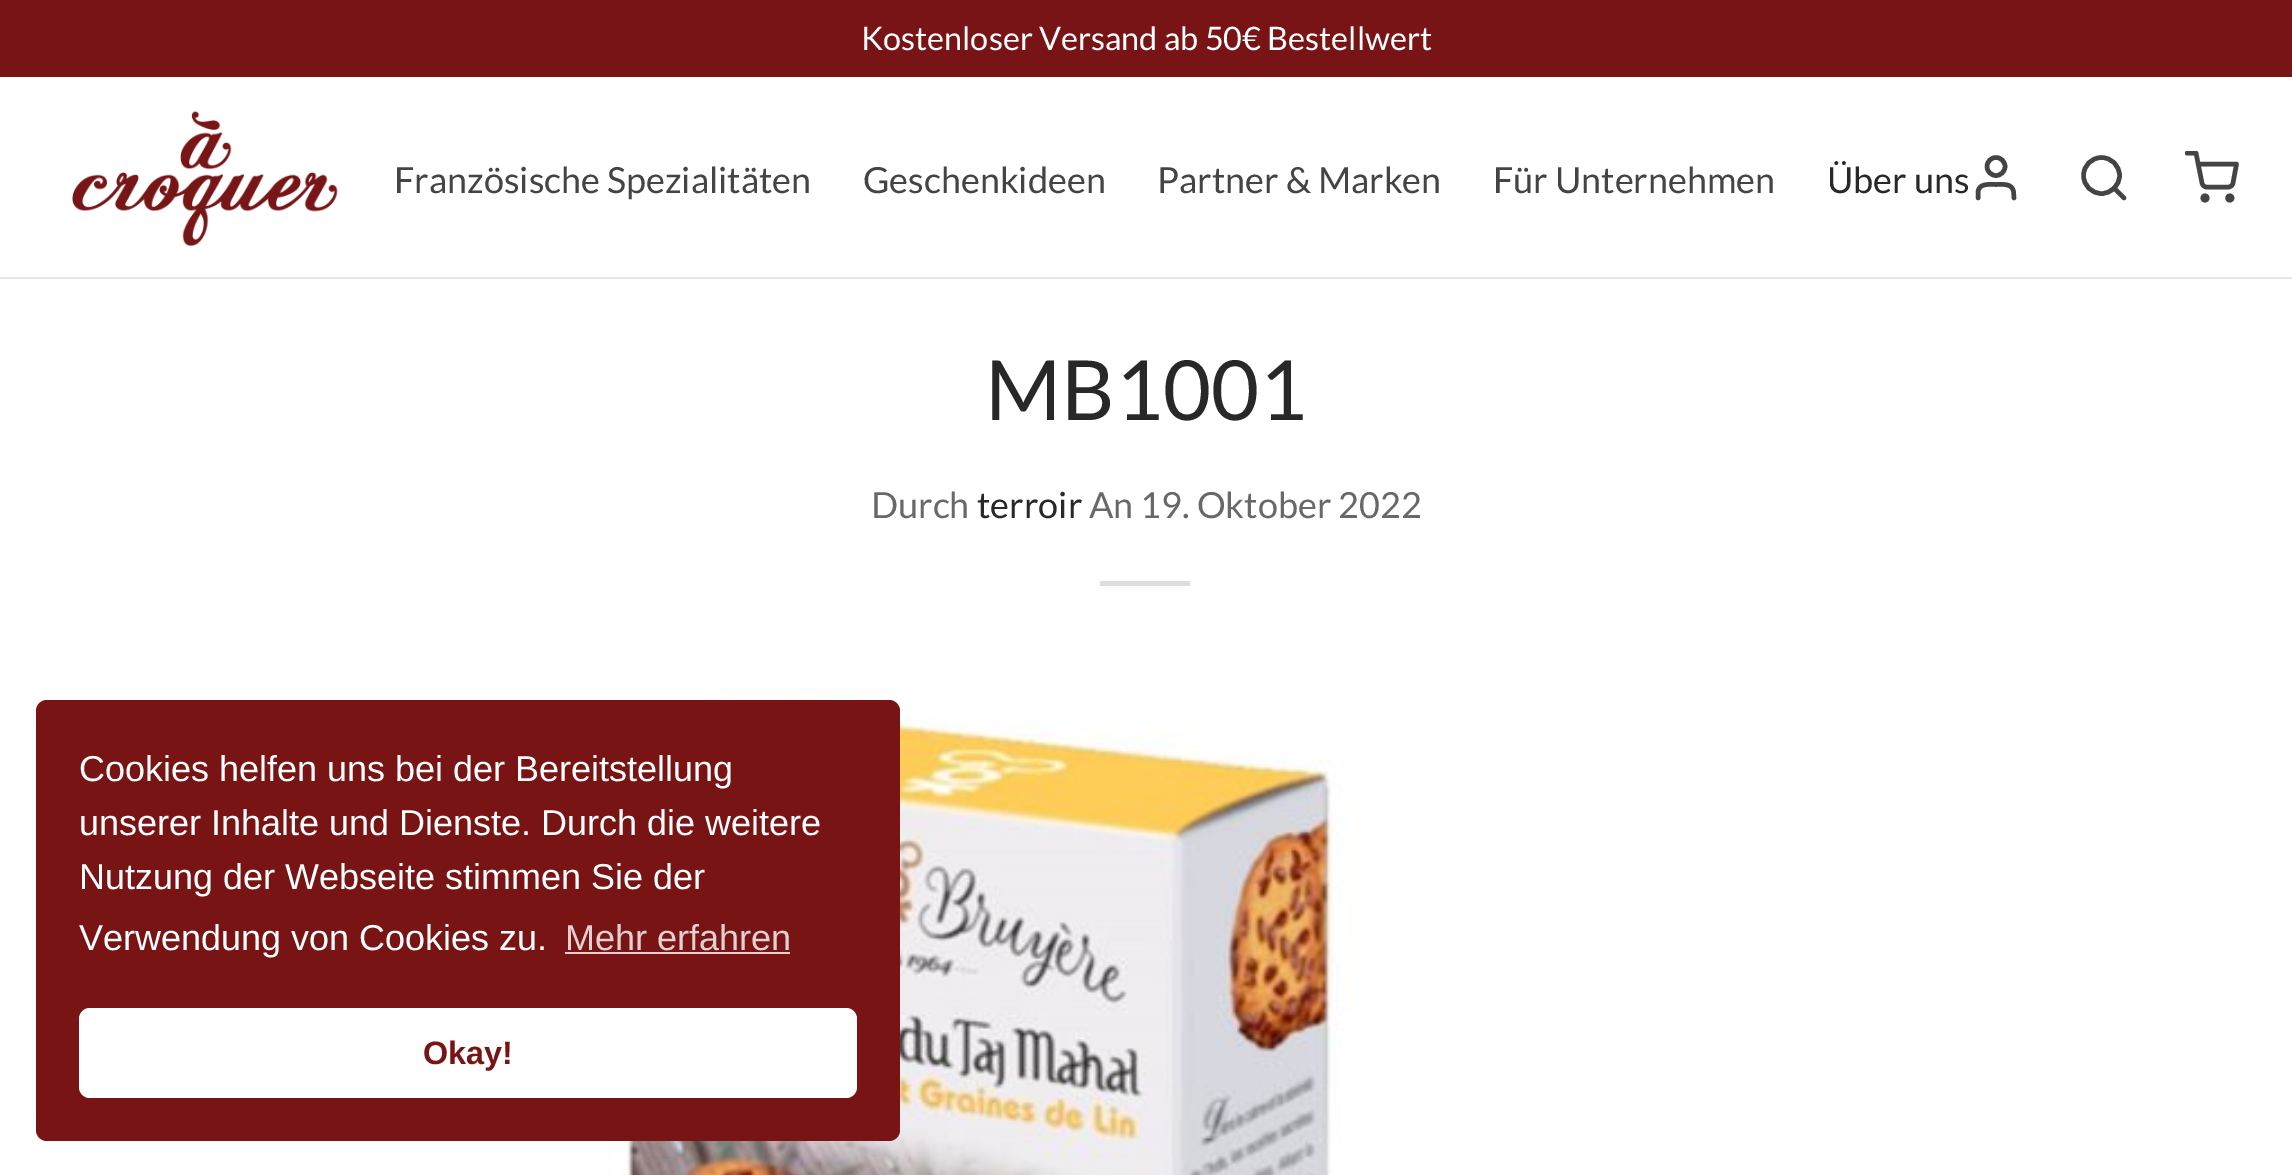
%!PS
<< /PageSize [2292 1175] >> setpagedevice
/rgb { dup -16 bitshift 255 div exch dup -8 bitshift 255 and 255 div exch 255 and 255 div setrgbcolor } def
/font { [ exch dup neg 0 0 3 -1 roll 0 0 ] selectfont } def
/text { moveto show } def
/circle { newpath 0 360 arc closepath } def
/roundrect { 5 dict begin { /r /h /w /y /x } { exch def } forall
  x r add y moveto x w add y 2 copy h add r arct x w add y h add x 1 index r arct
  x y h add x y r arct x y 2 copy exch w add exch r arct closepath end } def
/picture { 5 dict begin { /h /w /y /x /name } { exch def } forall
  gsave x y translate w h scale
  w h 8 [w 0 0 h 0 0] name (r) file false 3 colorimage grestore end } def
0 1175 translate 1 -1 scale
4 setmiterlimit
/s1 { /Lato-Regular 32.4 font 16#FFFFFF rgb } def
/s2 { /Lato-Regular 36 font 16#444444 rgb } def
/s3 { /Lato-Regular 36 font 16#282828 rgb } def
/s4 { /Lato-Regular 83 font 16#282828 rgb } def
/s5 { /Lato-Regular 36 font 16#686868 rgb } def
/s6 { /LiberationSans-Regular 36 font 16#FFFFFF rgb } def
/s7 { /LiberationSans-Regular 36 font 16#E4D0D0 rgb } def
/s8 { /LiberationSans-Bold 32.4 font 16#781414 rgb } def
16#FFFFFF rgb
0 0 2292 1175 rectfill
16#781415 rgb
0 0 2292 77 rectfill
s1
(Kostenloser Versand ab 50€ Bestellwert) 861 50 text
(pic1.raw) 72 111 266 136 picture
s2
(Französische Spezialitäten) 394 193 text
(Geschenkideen) 863 193 text
(Partner & Marken) 1157 193 text
(Für Unternehmen) 1493 193 text
s3
(Über uns) 1827 193 text
16#444444 rgb
4.5 setlinewidth
1 setlinecap
1 setlinejoin
2014 198 moveto 2013.5 191.5 lineto 2012 183 2002.5 184.5 1996 184.5 curveto 1989 184.5 1979.5 183 1978 191.5 curveto 1978 198 lineto stroke
0 setlinecap
0 setlinejoin
1996 166.5 9 circle stroke
2101.5 175.5 18 circle stroke
1 setlinecap
1 setlinejoin
2124 198 moveto 2114 188 lineto stroke
0 setlinecap
0 setlinejoin
2205 198 2.2 circle stroke
2229.8 198 2.2 circle stroke
gsave
2185 151 54 54 rectclip
1 setlinecap
1 setlinejoin
2187 153 moveto 2196 153 lineto 2202 183 lineto 2202.5 185.5 2204.5 187 2206.5 187 curveto 2228.5 187 lineto 2230.5 187 2232.5 185.5 2233 183 curveto 2236.5 164 lineto 2198 164 lineto stroke
grestore
16#E6E6E6 rgb
0 277 2292 2 rectfill
s4
(MB1001) 985 420 text
s5
(Durch) 871 518 text
s3
(terroir) 977 518 text
s5
(An 19. Oktober 2022) 1089 518 text
16#DDDDDD rgb
1100 581 90 5 rectfill
(pic2.raw) 606 688 754 487 picture
16#781414 rgb
36 700 864 441 11 roundrect fill
s6
(Cookies helfen uns bei der Bereitstellung) 79 781 text
(unserer Inhalte und Dienste. Durch die weitere) 79 835 text
(Nutzung der Webseite stimmen Sie der) 79 889 text
(Verwendung von Cookies zu.) 79 950 text
s7
(Mehr erfahren) 565 950 text
565 952 225 2 rectfill
16#FFFFFF rgb
79 1008 778 90 11 roundrect fill
s8
(Okay!) 423 1064 text
showpage
